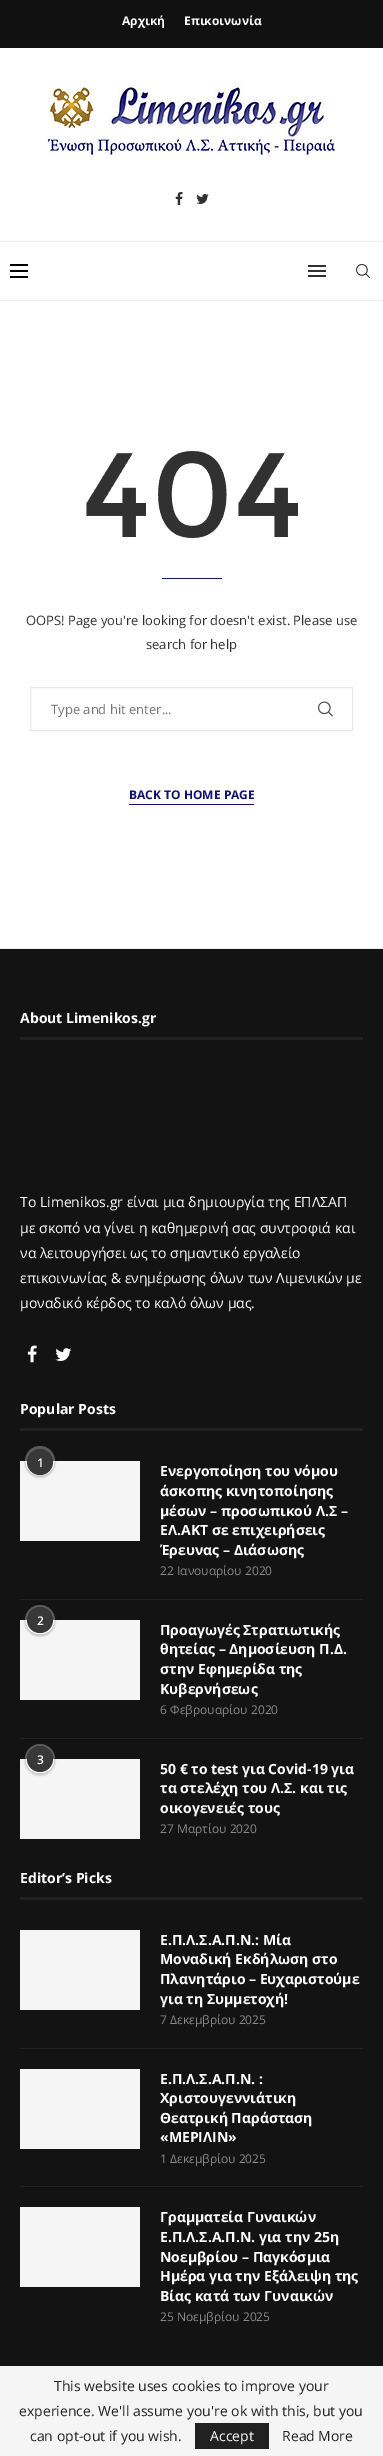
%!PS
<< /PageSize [383 2456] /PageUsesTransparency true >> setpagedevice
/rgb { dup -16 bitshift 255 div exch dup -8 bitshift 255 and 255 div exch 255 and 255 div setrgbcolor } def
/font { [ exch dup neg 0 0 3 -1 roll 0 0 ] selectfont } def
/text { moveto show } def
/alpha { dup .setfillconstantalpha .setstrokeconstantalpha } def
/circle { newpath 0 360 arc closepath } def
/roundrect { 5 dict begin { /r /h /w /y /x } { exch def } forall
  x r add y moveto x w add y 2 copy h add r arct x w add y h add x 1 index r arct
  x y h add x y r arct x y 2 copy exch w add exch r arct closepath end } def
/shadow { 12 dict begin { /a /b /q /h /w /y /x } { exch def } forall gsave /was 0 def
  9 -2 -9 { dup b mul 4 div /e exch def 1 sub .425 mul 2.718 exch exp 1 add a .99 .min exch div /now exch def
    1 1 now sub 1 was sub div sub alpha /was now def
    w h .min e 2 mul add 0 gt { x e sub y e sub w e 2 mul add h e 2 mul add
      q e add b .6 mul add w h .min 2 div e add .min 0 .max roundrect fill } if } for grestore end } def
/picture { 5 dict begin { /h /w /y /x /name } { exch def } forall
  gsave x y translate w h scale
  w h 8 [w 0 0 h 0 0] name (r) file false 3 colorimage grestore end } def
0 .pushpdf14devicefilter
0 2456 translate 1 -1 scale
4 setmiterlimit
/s1 { /OpenSans-Bold 12 font 16#FFFFFF rgb } def
/s2 { /OpenSans-Regular 13 font 16#313131 rgb } def
/s3 { /OpenSans-Regular 13 font 16#757575 rgb } def
/s4 { /OpenSans-Bold 12 font 16#101272 rgb } def
/s5 { /OpenSans-Bold 14 font 16#FFFFFF rgb } def
/s6 { /OpenSans-Regular 14 font 16#FFFFFF rgb } def
/s7 { /OpenSans-SemiBold 12 font 16#FFFFFF rgb } def
/s8 { /OpenSans-Regular 12 font 16#888888 rgb } def
/s9 { /OpenSans-Regular 14 font 16#212121 rgb } def
16#FFFFFF rgb
0 0 383 2456 rectfill
16#111111 rgb
0 0 383 48 rectfill
s1
(Αρχική) 122 25 text
(Επικοινωνία) 184 25 text
(pic1.raw) 46 85 290 71 picture
(pic2.raw) 175 192 8 13 picture
(pic3.raw) 196 194 13 10 picture
16#ECECEC rgb
0 241 383 1 rectfill
0 300 383 1 rectfill
16#000000 rgb
10 264 18 2 rectfill
10 270 18 2 rectfill
10 276 18 2 rectfill
16#313131 rgb
308 265 18 2 rectfill
308 275 18 2 rectfill
308 270 18 2 rectfill
(pic4.raw) 356 264 14 14 picture
(pic5.raw) 86 451 212 87 picture
16#101272 rgb
162 578 60 1 rectfill
s2
(OOPS! Page you're looking for doesn't exist. Please use) 26 625 text
(search for help) 146 649 text
16#E9E9E9 rgb
30.5 687.5 322 43 rectstroke
s3
(Type and hit enter...) 51 714 text
(pic6.raw) 318 701 15 16 picture
s4
(BACK TO HOME PAGE) 129 799 text
129 804 125 1 rectfill
16#131313 rgb
0 949 383 1417 rectfill
16#ECECEC rgb
0 948 383 1 rectfill
16#212121 rgb
20 1037 343 3 rectfill
s5
(About Limenikos.gr) 20 1023 text
s6
(To Limenikos.gr είναι μια δημιουργία της ΕΠΛΣΑΠ) 20 1207 text
(με σκοπό να γίνει η καθημερινή σας συντροφιά και) 20 1233 text
(να λειτουργήσει ως το σημαντικό εργαλείο) 20 1258 text
(επικοινωνίας & ενημέρωσης όλων των Λιμενικών με) 20 1283 text
(μοναδικό κέρδος το καλό όλων μας.) 20 1308 text
(pic7.raw) 27 1345 10 18 picture
(pic8.raw) 55 1348 17 13 picture
16#212121 rgb
20 1428 343 3 rectfill
s5
(Popular Posts) 20 1414 text
16#212121 rgb
20 1599 343 1 rectfill
16#F5F5F5 rgb
20 1461 120 80 rectfill
gsave
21 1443 moveto 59 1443 lineto 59 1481 lineto 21 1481 lineto closepath 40 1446 moveto 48.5 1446 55 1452.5 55 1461 curveto 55 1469.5 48.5 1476 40 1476 curveto 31.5 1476 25 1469.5 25 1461 curveto 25 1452.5 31.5 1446 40 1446 curveto closepath eoclip newpath
16#000000 rgb
25 1447 30 30 15 1 0.25 shadow
grestore
0.3 alpha
16#FFFFFF rgb
40 1461 15 circle fill
1 alpha
16#383838 rgb
40 1462 13 circle fill
s7
(1) 37 1467 text
s5
(Ενεργοποίηση του νόμου) 160 1476 text
(άσκοπης κινητοποίησης) 160 1496 text
(μέσων – προσωπικού Λ.Σ –) 160 1516 text
(ΕΛ.ΑΚΤ σε επιχειρήσεις) 160 1535 text
(Έρευνας – Διάσωσης) 160 1555 text
s8
(22 Ιανουαρίου 2020) 160 1575 text
16#212121 rgb
20 1738 343 1 rectfill
16#F5F5F5 rgb
20 1620 120 80 rectfill
gsave
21 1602 moveto 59 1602 lineto 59 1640 lineto 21 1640 lineto closepath 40 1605 moveto 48.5 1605 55 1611.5 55 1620 curveto 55 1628.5 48.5 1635 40 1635 curveto 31.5 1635 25 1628.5 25 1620 curveto 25 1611.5 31.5 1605 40 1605 curveto closepath eoclip newpath
16#000000 rgb
25 1606 30 30 15 1 0.25 shadow
grestore
0.3 alpha
16#FFFFFF rgb
40 1620 15 circle fill
1 alpha
16#383838 rgb
40 1620 13 circle fill
s7
(2) 37 1625 text
s5
(Προαγωγές Στρατιωτικής) 160 1635 text
(θητείας – Δημοσίευση Π.Δ.) 160 1654 text
(στην Εφημερίδα της) 160 1674 text
(Κυβερνήσεως) 160 1694 text
s8
(6 Φεβρουαρίου 2020) 160 1714 text
16#F5F5F5 rgb
20 1759 120 80 rectfill
gsave
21 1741 moveto 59 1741 lineto 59 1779 lineto 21 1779 lineto closepath 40 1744 moveto 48.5 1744 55 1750.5 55 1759 curveto 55 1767.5 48.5 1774 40 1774 curveto 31.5 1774 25 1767.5 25 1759 curveto 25 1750.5 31.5 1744 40 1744 curveto closepath eoclip newpath
16#000000 rgb
25 1745 30 30 15 1 0.25 shadow
grestore
0.3 alpha
16#FFFFFF rgb
40 1759 15 circle fill
1 alpha
16#383838 rgb
40 1759 13 circle fill
s7
(3) 37 1764 text
s5
(50 € το test για Covid-19 για) 160 1774 text
(τα στελέχη του Λ.Σ. και τις) 160 1793 text
(οικογενειές τους) 160 1813 text
s8
(27 Μαρτίου 2020) 160 1833 text
16#212121 rgb
20 1897 343 3 rectfill
s5
(Editor’s Picks) 20 1883 text
16#212121 rgb
20 2048 343 1 rectfill
16#F5F5F5 rgb
20 1930 120 80 rectfill
s5
(Ε.Π.Λ.Σ.Α.Π.Ν.: Μία) 160 1945 text
(Μοναδική Εκδήλωση στο) 160 1964 text
(Πλανητάριο – Ευχαριστούμε) 160 1984 text
(για τη Συμμετοχή!) 160 2004 text
s8
(7 Δεκεμβρίου 2025) 160 2024 text
16#212121 rgb
20 2186 343 1 rectfill
16#F5F5F5 rgb
20 2069 120 80 rectfill
s5
(Ε.Π.Λ.Σ.Α.Π.Ν. :) 160 2084 text
(Χριστουγεννιάτικη) 160 2103 text
(Θεατρική Παράσταση) 160 2123 text
(«ΜΕΡΙΛΙΝ») 160 2142 text
s8
(1 Δεκεμβρίου 2025) 160 2163 text
16#F5F5F5 rgb
20 2207 120 80 rectfill
s5
(Γραμματεία Γυναικών) 160 2222 text
(Ε.Π.Λ.Σ.Α.Π.Ν. για την 25η) 160 2242 text
(Νοεμβρίου – Παγκόσμια) 160 2262 text
(Ημέρα για την Εξάλειψη της) 160 2281 text
(Βίας κατά των Γυναικών) 160 2301 text
s8
(25 Νοεμβρίου 2025) 160 2321 text
16#F5F5F5 rgb
0 2366 383 90 rectfill
s9
(This website uses cookies to improve your) 54 2391 text
(experience. We'll assume you're ok with this, but you) 19 2416 text
(can opt-out if you wish.) 30 2441 text
195 2423 74 26 rectfill
s6
(Accept) 210 2441 text
s9
(Read More) 282 2441 text
.poppdf14devicefilter showpage
